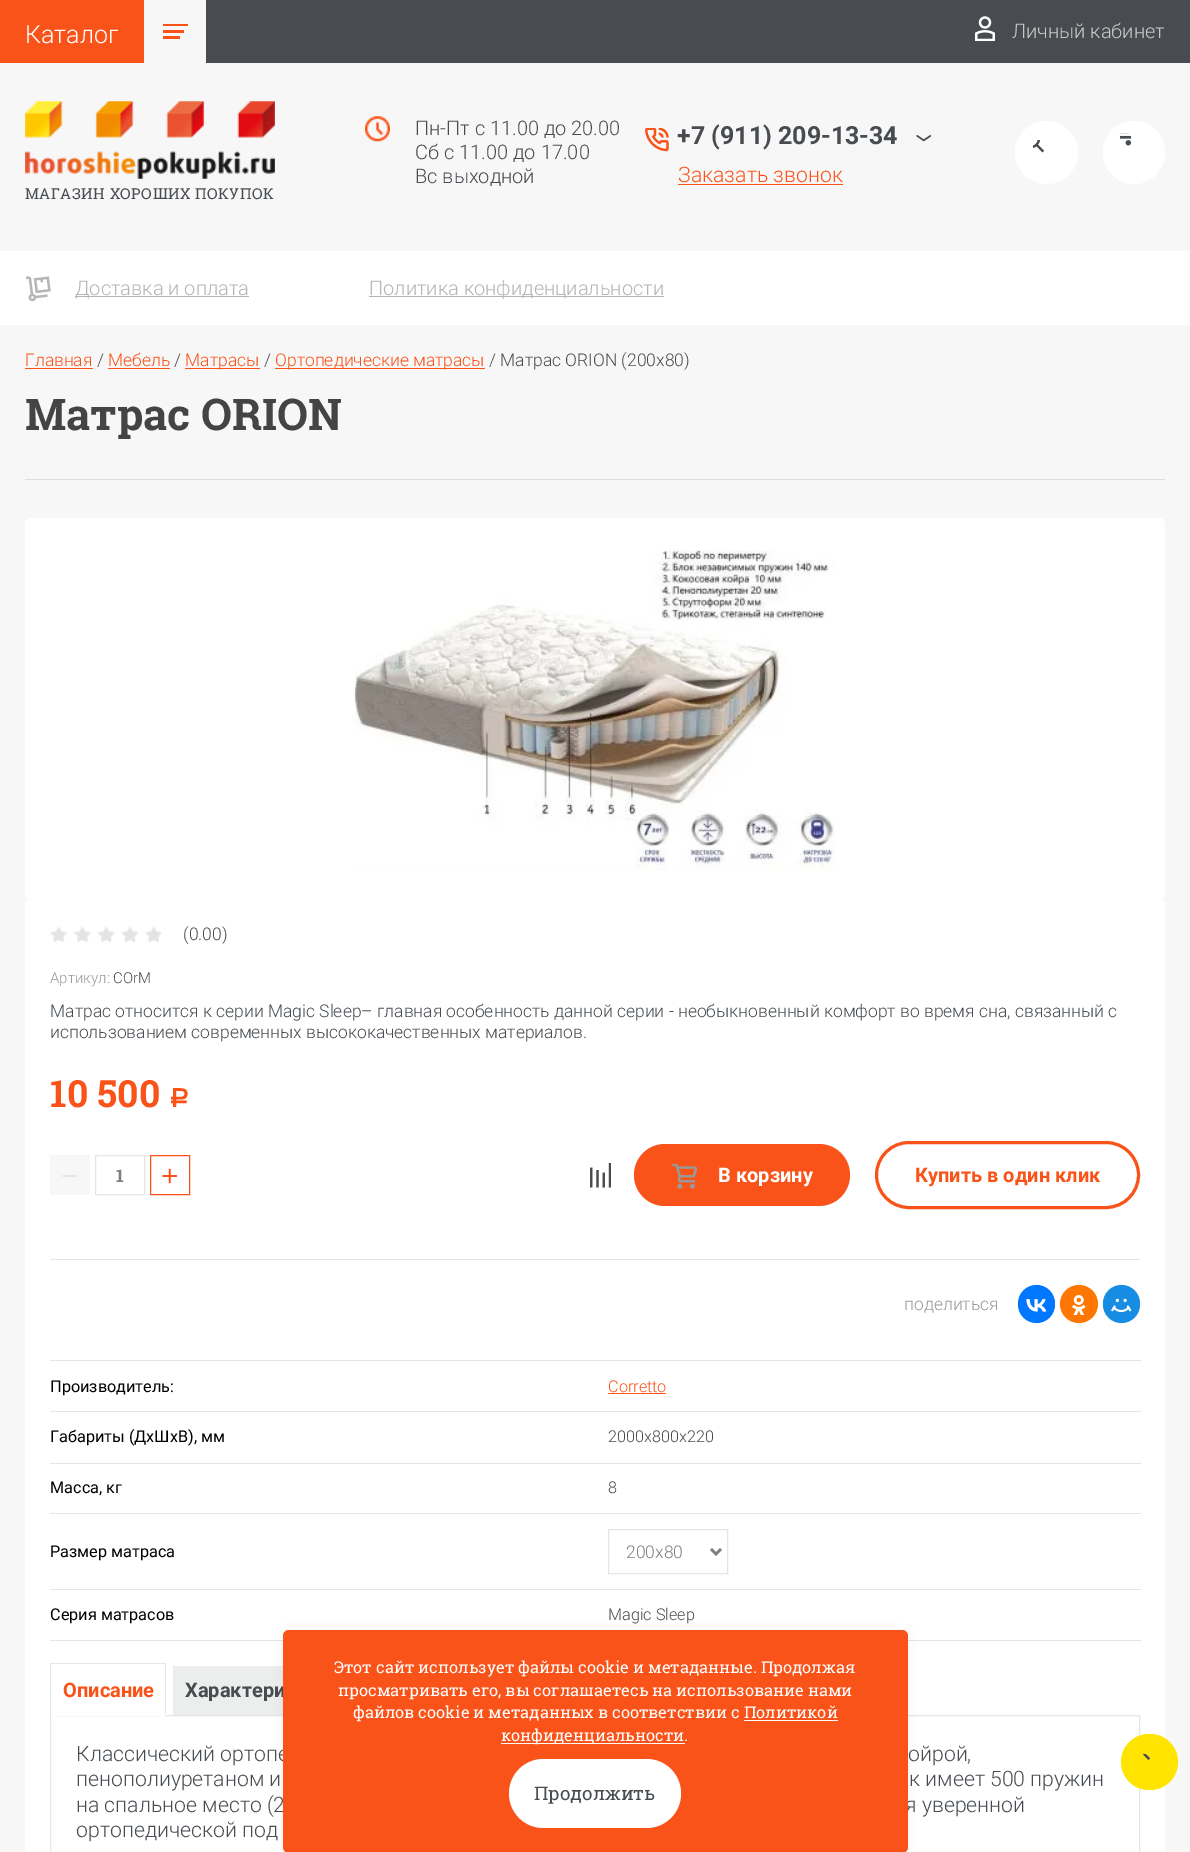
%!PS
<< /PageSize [1190 1852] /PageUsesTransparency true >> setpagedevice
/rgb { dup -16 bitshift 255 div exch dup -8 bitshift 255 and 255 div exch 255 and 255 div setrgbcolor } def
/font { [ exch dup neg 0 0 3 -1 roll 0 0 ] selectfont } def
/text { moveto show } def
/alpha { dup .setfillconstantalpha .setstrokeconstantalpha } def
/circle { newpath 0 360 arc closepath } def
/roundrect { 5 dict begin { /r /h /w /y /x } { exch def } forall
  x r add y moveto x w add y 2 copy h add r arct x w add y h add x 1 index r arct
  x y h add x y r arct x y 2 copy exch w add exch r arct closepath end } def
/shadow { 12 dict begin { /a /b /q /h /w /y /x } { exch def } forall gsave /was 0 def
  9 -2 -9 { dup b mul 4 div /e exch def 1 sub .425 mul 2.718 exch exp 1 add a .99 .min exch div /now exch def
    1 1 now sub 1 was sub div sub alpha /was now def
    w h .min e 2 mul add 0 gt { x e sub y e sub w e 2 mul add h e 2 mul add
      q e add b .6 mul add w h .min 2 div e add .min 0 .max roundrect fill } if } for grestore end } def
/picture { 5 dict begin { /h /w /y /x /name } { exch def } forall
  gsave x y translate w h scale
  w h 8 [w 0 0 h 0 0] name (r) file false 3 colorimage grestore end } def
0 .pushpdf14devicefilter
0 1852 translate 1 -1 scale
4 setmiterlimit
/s1 { /Roboto-Light 25 font 16#FFFFFF rgb } def
/s2 { /Roboto-Light 20 font 16#C8C8C8 rgb } def
/s3 { /Roboto-Light 20 font 16#484C50 rgb } def
/s4 { /Roboto-Bold 25 font 16#484C50 rgb } def
/s5 { /Roboto-Light 21.25 font 16#F95319 rgb } def
/s6 { /Roboto-Light 20 font 16#B5B5B5 rgb } def
/s7 { /Roboto-Light 17.5 font 16#F95319 rgb } def
/s8 { /Roboto-Light 17.5 font 16#484C50 rgb } def
/s9 { /RobotoSlab-Bold 43.75 font 16#444444 rgb } def
/s10 { /Roboto-Light 15 font 16#999999 rgb } def
/s11 { /Roboto-Light 15 font 16#484C50 rgb } def
/s12 { /RobotoSlab-Bold 37.5 font 16#F95319 rgb } def
/s13 { /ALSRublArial-Bold 26 font 16#F95319 rgb } def
/s14 { /LiberationSans-Regular 30 font 16#E6E6E6 rgb } def
/s15 { /RobotoSlab-Bold 17.5 font 16#7E7E7E rgb } def
/s16 { /LiberationSans-Regular 30 font 16#F95319 rgb } def
/s17 { /Roboto-Bold 20 font 16#FFFFFF rgb } def
/s18 { /Roboto-Bold 20 font 16#F95319 rgb } def
/s19 { /Roboto-Light 17.5 font 16#999999 rgb } def
/s20 { /Roboto-Regular 16.25 font 16#000000 rgb } def
/s21 { /Roboto-Light 16.25 font 16#F95319 rgb } def
/s22 { /Roboto-Light 16.25 font 16#484C50 rgb } def
/s23 { /Roboto-Light 17.5 font 16#7E7E7E rgb } def
/s24 { /Roboto-Bold 20 font 16#484C50 rgb } def
/s25 { /Roboto-Light 21.25 font 16#484C50 rgb } def
/s26 { /RobotoSlab-Regular 16.25 font 16#FFFFFF rgb } def
/s27 { /RobotoSlab-Regular 18.75 font 16#484C50 rgb } def
16#F7F7F7 rgb
0 0 1190 1852 rectfill
16#484C50 rgb
206 0 984 63 rectfill
16#F95319 rgb
0 0 144 63 rectfill
s1
(Каталог) 25 43 text
16#F95319 rgb
163 24 25 2 rectfill
163 30 21 3 rectfill
163 36 17 3 rectfill
(pic1.raw) 975 16 20 25 picture
s2
(Личный кабинет) 1012 38 text
(pic2.raw) 365 116 25 26 picture
s3
(Пн-Пт с 11.00 до 20.00) 415 135 text
(Сб с 11.00 до 17.00) 415 159 text
(Вс выходной) 415 183 text
(pic3.raw) 645 128 24 24 picture
s4
(+7 \(911\) 209-13-34) 677 144 text
(pic4.raw) 916 135 15 7 picture
s5
(Заказать звонок) 678 182 text
678 184 165 1 rectfill
16#FFFFFF rgb
1046.5 152.5 31.5 circle fill
(pic5.raw) 1033 140 12 13 picture
1103 121 62 63 31 roundrect fill
(pic6.raw) 1120 133 12 13 picture
(pic7.raw) 25 101 250 78 picture
/RobotoSlab-Regular 15 font
16#484C50 rgb
25 199 moveto 0.5 0 (МАГАЗИН ХОРОШИХ ПОКУПОК) ashow
16#FFFFFF rgb
0 251 1190 74 rectfill
(pic8.raw) 25 276 26 26 picture
16#B5B5B5 rgb
75 296 174 1 rectfill
s6
(Доставка и оплата) 75 295 text
369 296 295 1 rectfill
(Политика конфиденциальности) 369 295 text
s7
(Главная) 25 366 text
25 368 68 1 rectfill
s8
(/) 97 366 text
s7
(Мебель) 108 366 text
108 368 62 1 rectfill
s8
(/) 174 366 text
16#F95319 rgb
185 368 75 1 rectfill
(Матрасы) 185 366 text
s8
(/) 264 366 text
16#F95319 rgb
275 368 210 1 rectfill
(Ортопедические матрасы) 275 366 text
s8
(/ Матрас ORION \(200x80\)) 489 366 text
16#DDDEDE rgb
25 479 1140 1 rectfill
s9
(Матрас ORION) 25 430 text
16#FFFFFF rgb
25 518 1140 381 6 roundrect fill
(pic9.raw) 354 550 481 321 picture
25 899 1140 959 6 roundrect fill
(pic10.raw) 50 926 112 17 picture
s8
(\(0.00\)) 183 940 text
s10
(Артикул:) 50 983 text
s11
(COrM) 113 983 text
s8
(Матрас относится к серии Magic Sleep– главная особенность данной серии - необыкновенный комфорт во время сна, связанный с) 50 1017 text
(использованием современных высококачественных материалов.) 50 1038 text
s12
(10 500) 50 1107 text
s13
(Р) 169 1107 text
16#F7F7F7 rgb
50 1155 40 40 rectfill
s14
(−) 61 1186 text
95.5 1155.5 49 39 rectstroke
s15
(1) 116 1182 text
16#F95319 rgb
150.5 1155.5 39 39 rectstroke
s16
(+) 161 1186 text
(pic11.raw) 590 1163 21 25 picture
634 1144 216 62 31 roundrect fill
(pic12.raw) 672 1164 26 25 picture
s17
(В корзину) 718 1182 text
16#F95319 rgb
3 setlinewidth
876.5 1142.5 262 65 32.5 roundrect stroke
(Купить в один клик) 915 1182 text
16#E5E5E5 rgb
50 1259 1090 1 rectfill
s19
(поделиться) 904 1310 text
16#0077FF rgb
1018 1285 37 38 18.5 roundrect fill
(pic13.raw) 1026 1299 21 13 picture
16#FF7700 rgb
1079 1304 19 circle fill
(pic14.raw) 1072 1295 14 20 picture
16#168DE2 rgb
1103 1285 37 38 18.5 roundrect fill
(pic15.raw) 1111 1298 21 15 picture
s20
(Производитель:) 50 1392 text
16#E5E5E5 rgb
50 1360 1091 1 rectfill
s21
(Corretto) 608 1392 text
608 1393 58 1 rectfill
s20
(Габариты \(ДхШхВ\), мм) 50 1442 text
16#E5E5E5 rgb
50 1411 1091 1 rectfill
s22
(2000x800x220) 608 1442 text
s20
(Масса, кг) 50 1493 text
16#E5E5E5 rgb
50 1463 1091 1 rectfill
s22
(8) 608 1493 text
s20
(Размер матраса) 50 1557 text
16#E5E5E5 rgb
50 1513 1091 1 rectfill
1 setlinewidth
608.5 1529.5 119 44 rectstroke
16#7E7E7E rgb
2.5 setlinewidth
711 1549 moveto 716 1554 lineto 721 1549 lineto stroke
s23
(200x80) 626 1558 text
16#E5E5E5 rgb
50 1640 233 1 rectfill
s20
(Серия матрасов) 50 1620 text
16#E5E5E5 rgb
50 1589 1091 1 rectfill
908 1640 233 1 rectfill
s22
(Magic Sleep) 608 1620 text
16#E6E6E6 rgb
50 1663 116 1 rectfill
165 1663 1 52 rectfill
16#FFFFFF rgb
165 1714 1 1 rectfill
16#E6E6E6 rgb
50 1663 1 52 rectfill
s18
(Описание) 63 1697 text
16#E6E6E6 rgb
1 setlinewidth
50.5 1715.5 1089 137 rectstroke
16#FFFFFF rgb
51 1715 114 1 rectfill
16#ECEDED rgb
173 1666 110 49 rectfill
s24
(Характери) 185 1697 text
s25
(Классический ортопе) 76 1761 text
(ойрой,) 908 1761 text
(пенополиуретаном и) 76 1786 text
(к имеет 500 пружин) 909 1786 text
(на спальное место \(2) 76 1812 text
(я уверенной) 905 1812 text
(ортопедической под) 76 1837 text
16#FFE401 rgb
1121 1734 57 56 28 roundrect fill
gsave
1139 1754 22 17 rectclip
16#484C50 rgb
1130 1760 moveto 1128.5 1758.5 lineto 1139.5 1747.5 lineto 1150 1758.5 lineto 1148.5 1760 lineto 1139.5 1750.5 lineto closepath fill
grestore
16#000000 rgb
283 1631 625 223 6 6 0.06 shadow
16#F95319 rgb
283 1630 625 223 6 roundrect fill
s26
(Этот сайт использует файлы cookie и метаданные. Продолжая) 334 1673 text
(просматривать его, вы соглашаетесь на использование нами) 338 1696 text
(файлов cookie и метаданных в соответствии с Политикой) 353 1718 text
501 1743 184 1 rectfill
(конфиденциальности.) 501 1741 text
744 1720 94 1 rectfill
509 1759 172 69 34.5 roundrect fill
s27
(Продолжить) 534 1800 text
.poppdf14devicefilter showpage
